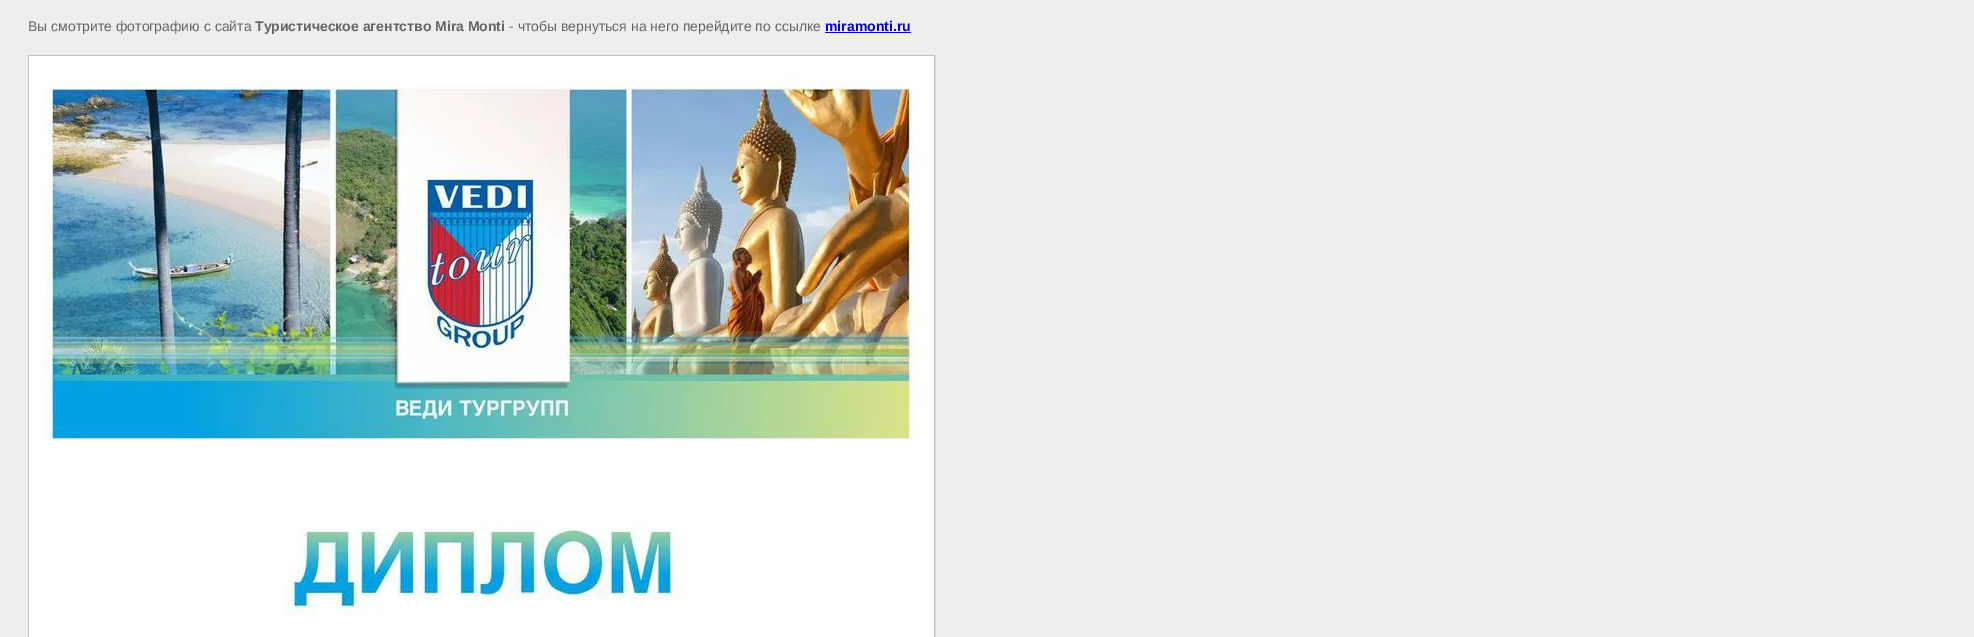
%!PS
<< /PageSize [1974 637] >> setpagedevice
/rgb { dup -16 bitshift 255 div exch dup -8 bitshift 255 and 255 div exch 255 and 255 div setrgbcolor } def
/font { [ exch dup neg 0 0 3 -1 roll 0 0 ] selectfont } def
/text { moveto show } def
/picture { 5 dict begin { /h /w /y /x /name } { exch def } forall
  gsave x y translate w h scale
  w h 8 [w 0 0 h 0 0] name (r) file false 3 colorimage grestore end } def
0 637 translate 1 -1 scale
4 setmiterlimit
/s1 { /LiberationSans-Regular 14 font 16#666666 rgb } def
/s2 { /LiberationSans-Bold 14 font 16#666666 rgb } def
/s3 { /LiberationSans-Bold 14 font 16#0000CC rgb } def
16#EEEEEE rgb
0 0 1974 637 rectfill
s1
(Вы смотрите фотографию с сайта) 28 31 text
s2
(Туристическое агентство Mira Monti) 255 31 text
s1
(- чтобы вернуться на него перейдите по ссылке) 509 31 text
s3
(miramonti.ru) 825 31 text
825 32 86 1 rectfill
16#C0C0C0 rgb
28.5 55.5 906 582 rectstroke
(pic1.raw) 29 56 905 581 picture
showpage
